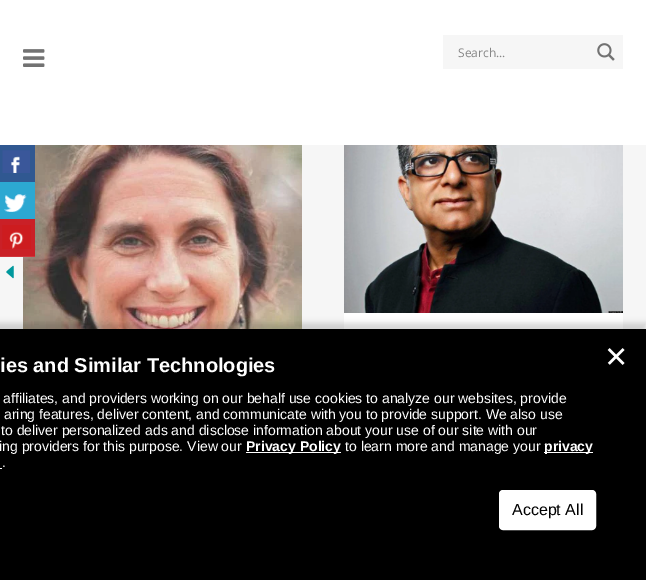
%!PS
<< /PageSize [646 580] /PageUsesTransparency true >> setpagedevice
/rgb { dup -16 bitshift 255 div exch dup -8 bitshift 255 and 255 div exch 255 and 255 div setrgbcolor } def
/font { [ exch dup neg 0 0 3 -1 roll 0 0 ] selectfont } def
/text { moveto show } def
/alpha { dup .setfillconstantalpha .setstrokeconstantalpha } def
/roundrect { 5 dict begin { /r /h /w /y /x } { exch def } forall
  x r add y moveto x w add y 2 copy h add r arct x w add y h add x 1 index r arct
  x y h add x y r arct x y 2 copy exch w add exch r arct closepath end } def
/shadow { 12 dict begin { /a /b /q /h /w /y /x } { exch def } forall gsave /was 0 def
  9 -2 -9 { dup b mul 4 div /e exch def 1 sub .425 mul 2.718 exch exp 1 add a .99 .min exch div /now exch def
    1 1 now sub 1 was sub div sub alpha /was now def
    w h .min e 2 mul add 0 gt { x e sub y e sub w e 2 mul add h e 2 mul add
      q e add b .6 mul add w h .min 2 div e add .min 0 .max roundrect fill } if } for grestore end } def
/picture { 5 dict begin { /h /w /y /x /name } { exch def } forall
  gsave x y translate w h scale
  w h 8 [w 0 0 h 0 0] name (r) file false 3 colorimage grestore end } def
0 .pushpdf14devicefilter
0 580 translate 1 -1 scale
4 setmiterlimit
/s1 { /OpenSans-Regular 12 font 16#868686 rgb } def
/s2 { /LiberationSans-Bold 20 font 16#FFFFFF rgb } def
/s3 { /LiberationSans-Regular 14 font 16#FFFFFF rgb } def
/s4 { /LiberationSans-Bold 14 font 16#FFFFFF rgb } def
/s5 { /DejaVuSans-Regular 29 font 16#FFFFFF rgb } def
/s6 { /LiberationSans-Regular 16 font 16#000000 rgb } def
16#F6F6F6 rgb
0 0 646 580 rectfill
16#FFFFFF rgb
0 0 646 145 rectfill
(pic1.raw) 23 49 22 18 picture
16#F6F6F6 rgb
443 35 180 34 rectfill
s1
(Search...) 458 57 text
(pic2.raw) 597 43 18 18 picture
(pic3.raw) 23 145 279 184 picture
(pic4.raw) 344 145 279 168 picture
16#FFFFFF rgb
344 313 279 16 rectfill
16#305891 rgb
0 145 35 37 rectfill
(pic5.raw) 2 150 28 23 picture
16#2CA8D2 rgb
0 182 35 37 rectfill
(pic6.raw) 4 194 23 18 picture
16#CA2027 rgb
0 219 35 37 rectfill
16#CF363D rgb
0 256 35 1 rectfill
(pic7.raw) 2 225 29 24 picture
(pic8.raw) 6 265 8 14 picture
16#000000 rgb
-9 323 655 251 0 3 0.16 shadow
0 329 646 251 rectfill
s2
(ies and Similar Technologies) 0 372 text
s3
(affiliates, and providers working on our behalf use cookies to analyze our websites, provide) 3 403 text
(aring features, deliver content, and communicate with you to provide support. We also use) 4 419 text
(to deliver personalized ads and disclose information about your use of our site with our) 1 435 text
(ing providers for this purpose. View our) -1 451 text
246 452 95 1 rectfill
s4
(Privacy Policy) 246 451 text
s3
(to learn more and manage your) 345 451 text
544 452 49 1 rectfill
s4
(privacy) 544 451 text
0 468 2 1 rectfill
s3
(.) 2 467 text
s5
(✕) 604 367 text
500 491 95 38 3 roundrect gsave fill grestore
2 setlinewidth
stroke
s6
(Accept All) 512 515 text
.poppdf14devicefilter showpage
